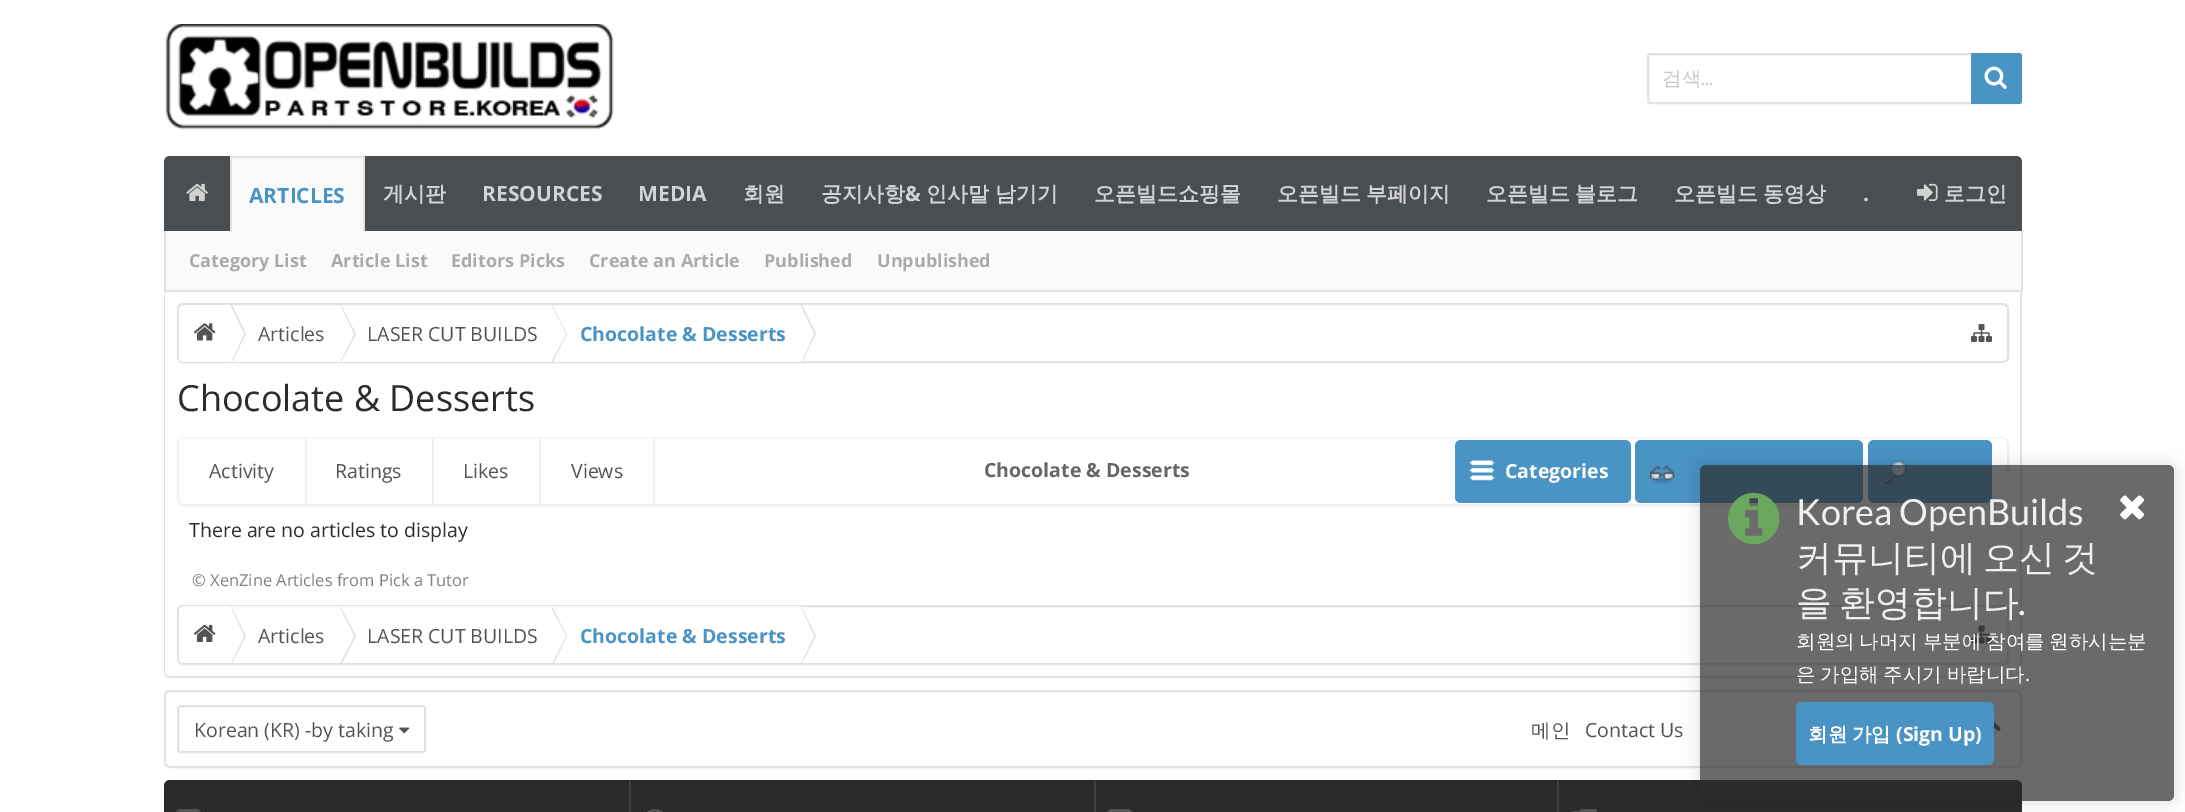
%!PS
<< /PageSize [2185 812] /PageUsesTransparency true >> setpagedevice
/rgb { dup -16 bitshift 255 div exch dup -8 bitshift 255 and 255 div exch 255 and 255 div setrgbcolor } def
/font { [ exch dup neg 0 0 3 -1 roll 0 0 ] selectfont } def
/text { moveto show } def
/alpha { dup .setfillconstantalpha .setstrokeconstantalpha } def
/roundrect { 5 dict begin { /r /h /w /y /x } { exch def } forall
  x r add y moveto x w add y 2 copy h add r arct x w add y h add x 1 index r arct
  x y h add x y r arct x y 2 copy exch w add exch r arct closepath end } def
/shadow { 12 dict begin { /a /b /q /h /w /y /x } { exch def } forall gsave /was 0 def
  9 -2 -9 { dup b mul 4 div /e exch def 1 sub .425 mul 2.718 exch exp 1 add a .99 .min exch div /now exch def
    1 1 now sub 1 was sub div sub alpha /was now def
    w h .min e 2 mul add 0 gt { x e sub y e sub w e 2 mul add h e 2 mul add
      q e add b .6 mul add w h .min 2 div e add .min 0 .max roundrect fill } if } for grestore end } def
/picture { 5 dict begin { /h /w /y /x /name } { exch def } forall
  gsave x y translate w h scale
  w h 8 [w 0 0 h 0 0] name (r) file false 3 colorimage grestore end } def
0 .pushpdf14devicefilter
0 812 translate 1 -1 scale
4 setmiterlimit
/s1 { /WenQuanYiZenHei-Medium 19.5 font 16#C8C8C8 rgb } def
/s2 { /Lato-Regular 19.5 font 16#C8C8C8 rgb } def
/s3 { /WenQuanYiZenHei-Bold 21 font 16#D2D3D4 rgb } def
/s4 { /OpenSans-Bold 21 font 16#D2D3D4 rgb } def
/s5 { /OpenSans-Bold 21 font 16#4993C5 rgb } def
/s6 { /OpenSans-Bold 18 font 16#AAAAAA rgb } def
/s7 { /OpenSans-Regular 19.5 font 16#535353 rgb } def
/s8 { /OpenSans-Bold 19.5 font 16#4993C5 rgb } def
/s9 { /OpenSans-Regular 36 font 16#2C2C2C rgb } def
/s10 { /OpenSans-Bold 19.5 font 16#666666 rgb } def
/s11 { /OpenSans-Bold 19.5 font 16#FFFFFF rgb } def
/s12 { /OpenSans-Regular 19.5 font 16#2C2C2C rgb } def
/s13 { /OpenSans-Regular 16.5 font 16#7F7F7F rgb } def
/s14 { /Lato-Regular 36 font 16#F0F0F0 rgb } def
/s15 { /WenQuanYiZenHei-Medium 19.5 font 16#FFFFFF rgb } def
/s16 { /OpenSans-Regular 19.5 font 16#FFFFFF rgb } def
/s17 { /WenQuanYiZenHei-Medium 19.5 font 16#535353 rgb } def
16#FFFFFF rgb
0 0 2185 812 rectfill
(pic1.raw) 165 24 449 106 picture
16#E2E2E2 rgb
2 setlinewidth
1648 54 373 49 2 roundrect stroke
s1
(검색) 1662 85 text
s2
(...) 1701 85 text
16#4993C5 rgb
1971 53 moveto 2019 53 lineto 2020.5 53 2022 54.5 2022 56 curveto 2022 101 lineto 2022 102.5 2020.5 104 2019 104 curveto 1971 104 lineto closepath fill
(pic2.raw) 1984 66 23 23 picture
16#4A4E51 rgb
170 156 moveto 2016 156 lineto 2019.5 156 2022 158.5 2022 162 curveto 2022 231 lineto 164 231 lineto 164 162 lineto 164 158.5 166.5 156 170 156 curveto closepath fill
(pic3.raw) 186 183 22 18 picture
s3
(게시판) 383 201 text
s4
(RESOURCES) 482 201 text
(MEDIA) 638 201 text
s3
(회원) 743 201 text
(공지사항) 821 201 text
s4
(&) 905 201 text
s3
(인사말 남기기) 926 201 text
(오픈빌드쇼핑몰) 1094 201 text
1277 201 moveto -1 0 32 (오픈빌드 부페이지) widthshow
1486 201 moveto -1 0 32 (오픈빌드 블로그) widthshow
1674 201 moveto -1 0 32 (오픈빌드 동영상) widthshow
16#FAFAFA rgb
232 158 131 73 rectfill
16#E2E2E2 rgb
230 156 135 2 rectfill
363 156 2 78 rectfill
230 156 2 78 rectfill
s5
(ARTICLES) 249 203 text
16#FAFAFA rgb
166 231 1855 59 rectfill
16#E2E2E2 rgb
2021 231 2 60 rectfill
164 291 moveto 2022 291 lineto 2022 672 lineto 2022 675 2019 678 2016 678 curveto 170 678 lineto 166 678 164 675 164 672 curveto closepath 165 291 moveto 2020 291 lineto 2020 672 lineto 2020 674 2018 676 2016 676 curveto 170 676 lineto 167 676 165 674 165 672 curveto closepath eofill
164 290 1858 2 rectfill
164 231 2 60 rectfill
s6
(Category List) 189 267 text
(Article List) 331 267 text
(Editors Picks) 451 267 text
(Create an Article) 589 267 text
(Published) 764 267 text
(Unpublished) 877 267 text
s4
(.) 1863 201 text
(pic4.raw) 1917 183 21 18 picture
s3
(로그인) 1944 201 text
16#E2E2E2 rgb
178 304 1830 58 5 roundrect stroke
gsave
179 305 1828 57 5 roundrect clip newpath
16#FFFFFF rgb
185 305 moveto 231 305 lineto 231 363 lineto 185 363 lineto 181.5 363 179 360.5 179 357 curveto 179 311 lineto 179 307.5 181.5 305 185 305 curveto closepath fill
grestore
(pic5.raw) 194 323 22 18 picture
16#FFFFFF rgb
232 361 107 1 rectfill
16#E2E2E2 rgb
232 305 moveto 246 334 lineto 232 362 lineto 231 362 lineto 231 305 lineto closepath fill
16#FFFFFF rgb
230 305 moveto 244 334 lineto 231 362 lineto 230 362 lineto closepath fill
s7
(Articles) 258 341 text
16#FFFFFF rgb
341 361 460 1 rectfill
16#E2E2E2 rgb
341 305 moveto 356 334 lineto 341 362 lineto 340 362 lineto 340 305 lineto closepath fill
16#FFFFFF rgb
340 305 moveto 354 334 lineto 340 362 lineto 339 362 lineto 339 305 lineto closepath fill
s7
(LASER CUT BUILDS) 367 341 text
16#E2E2E2 rgb
552 305 moveto 567 334 lineto 553 362 lineto 552 362 lineto closepath fill
16#FFFFFF rgb
551 305 moveto 566 334 lineto 551 362 lineto 550 362 lineto 550 305 lineto closepath fill
s8
(Chocolate & Desserts) 580 341 text
16#E2E2E2 rgb
802 305 moveto 816 334 lineto 802 362 lineto 801 362 lineto 801 305 lineto closepath fill
16#FFFFFF rgb
800 305 moveto 814 334 lineto 801 362 lineto 800 362 lineto closepath fill
(pic6.raw) 1971 324 21 18 picture
s9
(Chocolate & Desserts) 177 411 text
16#F0F0F0 rgb
178 438 1830 67 7 roundrect stroke
16#FFFFFF rgb
179 438 1828 66 6 roundrect fill
16#F0F0F0 rgb
305 438 2 66 rectfill
s7
(Activity) 209 478 text
16#F0F0F0 rgb
432 438 2 66 rectfill
s7
(Ratings) 335 478 text
16#F0F0F0 rgb
539 438 2 66 rectfill
s7
(Likes) 463 478 text
16#F0F0F0 rgb
653 438 2 66 rectfill
s7
(Views) 571 478 text
s10
(Chocolate & Desserts) 984 477 text
16#4993C5 rgb
1455 440 176 63 6 roundrect fill
(pic7.raw) 1470 460 25 21 picture
s11
(Categories) 1505 478 text
16#4993C5 rgb
1635 440 228 63 6 roundrect fill
(pic8.raw) 1650 465 26 19 picture
1868 440 124 63 6 roundrect fill
(pic9.raw) 1883 460 24 25 picture
s12
(There are no articles to display) 189 537 text
s13
(© XenZine Articles from Pick a Tutor) 192 586 text
16#E2E2E2 rgb
178 606 1830 58 5 roundrect stroke
(pic13.raw) 1971 625 21 19 picture
165 691 1856 76 5 roundrect stroke
(pic15.raw) 1994 721 7 15 picture
16#2B2B2B rgb
164 780 1858 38 6 roundrect fill
gsave
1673 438 moveto 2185 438 lineto 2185 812 lineto 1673 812 lineto closepath 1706 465 moveto 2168 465 lineto 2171.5 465 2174 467.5 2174 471 curveto 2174 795 lineto 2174 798.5 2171.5 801 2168 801 curveto 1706 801 lineto 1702.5 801 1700 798.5 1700 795 curveto 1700 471 lineto 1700 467.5 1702.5 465 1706 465 curveto closepath eoclip newpath
16#000000 rgb
1697 462 480 342 9 7.5 0.1 shadow
grestore
0.7 alpha
1700 465 474 336 6 roundrect fill
1 alpha
(pic10.raw) 1728 492 52 53 picture
s14
(Korea OpenBuilds) 1796 525 text
/WenQuanYiZenHei-Medium 36 font
1796 570 moveto -4 0 32 (커뮤니티에 오신 것) widthshow
1796 615 moveto -4 0 32 (을 환영합니다) widthshow
s14
(.) 2018 615 text
(pic11.raw) 2120 495 25 25 picture
/WenQuanYiZenHei-Medium 19.5 font
16#FFFFFF rgb
1796 648 moveto -1 0 32 (회원의 나머지 부분에 참여를 원하시는분) widthshow
(은) 1796 681 text
1820 681 moveto -1 0 32 (가입해 주시기 바랍니다) widthshow
s16
(.) 2025 681 text
16#4993C5 rgb
1796 702 198 63 6 roundrect fill
/WenQuanYiZenHei-Bold 19.5 font
16#FFFFFF rgb
1808 741 moveto -1 0 32 (회원 가입) widthshow
s11
(\(Sign Up\)) 1896 741 text
gsave
179 606 1828 57 5 roundrect clip newpath
185 606 moveto 231 606 lineto 231 665 lineto 185 665 lineto 181.5 665 179 662.5 179 659 curveto 179 612 lineto 179 608.5 181.5 606 185 606 curveto closepath fill
grestore
(pic12.raw) 194 624 22 18 picture
231 606 570 1 rectfill
16#E2E2E2 rgb
232 663 moveto 231 663 lineto 231 606 lineto 246 636 lineto closepath fill
16#FFFFFF rgb
231 663 moveto 230 663 lineto 230 606 lineto 244 636 lineto closepath fill
s7
(Articles) 258 643 text
16#E2E2E2 rgb
342 663 moveto 340 663 lineto 340 606 lineto 356 636 lineto closepath fill
16#FFFFFF rgb
340 663 moveto 339 663 lineto 339 606 lineto 354 636 lineto closepath fill
s7
(LASER CUT BUILDS) 367 643 text
16#E2E2E2 rgb
554 663 moveto 552 663 lineto 552 606 lineto 567 636 lineto closepath fill
16#FFFFFF rgb
552 663 moveto 550 663 lineto 550 606 lineto 566 636 lineto closepath fill
s8
(Chocolate & Desserts) 580 643 text
16#E2E2E2 rgb
802 663 moveto 801 663 lineto 801 606 lineto 816 636 lineto closepath fill
16#FFFFFF rgb
801 663 moveto 800 663 lineto 800 606 lineto 814 636 lineto closepath fill
16#E2E2E2 rgb
178 706 247 46 2 roundrect stroke
s7
(Korean \(KR\) -by taking) 194 737 text
(pic14.raw) 399 727 11 7 picture
s17
(메인) 1531 737 text
s7
(Contact Us) 1585 737 text
(pic16.raw) 176 809 25 3 picture
16#404040 rgb
629 780 2 32 rectfill
(pic17.raw) 647 809 16 3 picture
1094 780 2 32 rectfill
(pic18.raw) 1107 809 26 3 picture
1557 780 2 32 rectfill
(pic19.raw) 1572 809 26 3 picture
.poppdf14devicefilter showpage
